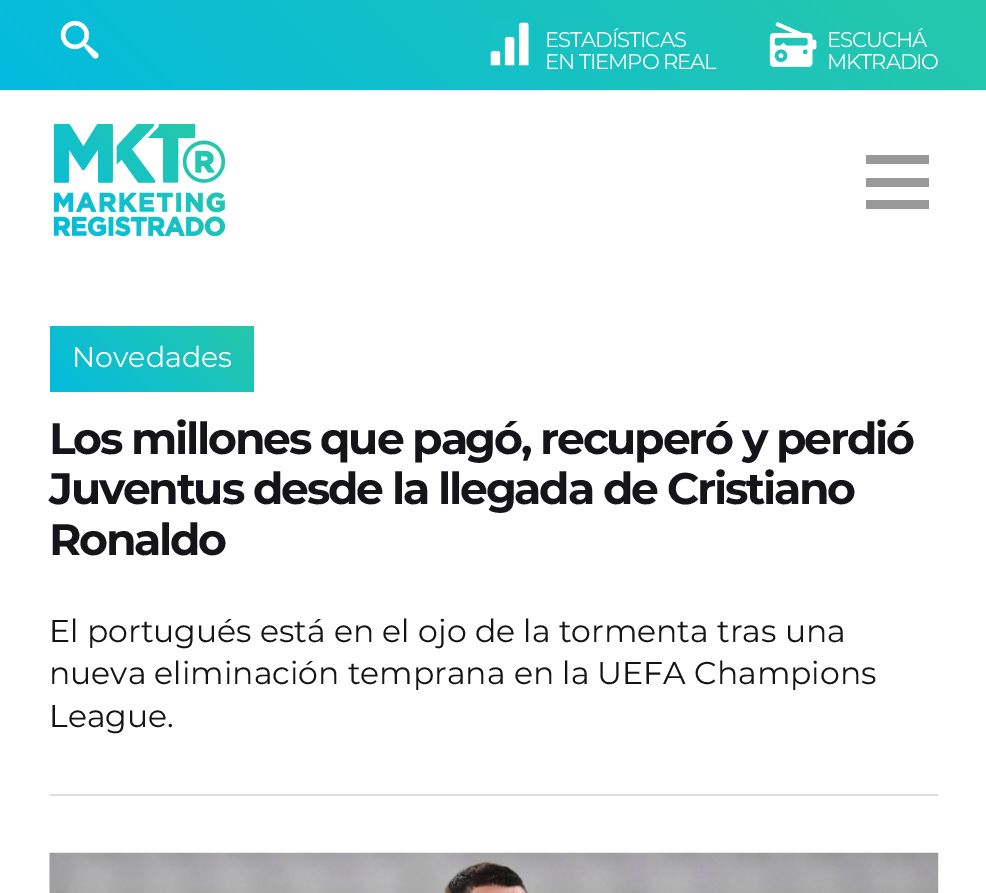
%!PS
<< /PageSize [986 893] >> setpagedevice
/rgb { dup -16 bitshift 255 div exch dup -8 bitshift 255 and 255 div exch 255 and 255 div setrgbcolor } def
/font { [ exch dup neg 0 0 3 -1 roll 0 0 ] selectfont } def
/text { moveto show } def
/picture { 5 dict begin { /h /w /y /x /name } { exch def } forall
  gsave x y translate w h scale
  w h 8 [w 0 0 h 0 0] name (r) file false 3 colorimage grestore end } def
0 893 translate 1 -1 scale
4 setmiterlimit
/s1 { /Montserrat-Regular 28.5 font 16#FFFFFF rgb } def
/s2 { /Montserrat-Regular 31.5 font 16#151419 rgb } def
16#FFFFFF rgb
0 0 986 893 rectfill
gsave 0 0 moveto 986 0 lineto 986 90 lineto 0 90 lineto closepath clip newpath
<< /ShadingType 2 /ColorSpace /DeviceRGB /Coords [224 314 763 -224] /Extend [true true] /Function << /FunctionType 2 /Domain [0 1] /C0 [0.016 0.733 0.875] /C1 [0.149 0.784 0.667] /N 1 >> >> shfill grestore
(pic1.raw) 60 20 39 39 picture
(pic2.raw) 490 22 39 44 picture
/Montserrat-Regular 21.25 font
545 47 moveto -1.1 0 (ESTADÍSTICAS) ashow
545 69 moveto -1.1 0 (EN TIEMPO REAL) ashow
(pic3.raw) 769 22 48 45 picture
827 47 moveto -1.1 0 (ESCUCHÁ) ashow
827 69 moveto -1.1 0 (MKTRADIO) ashow
(pic4.raw) 53 124 173 112 picture
16#999999 rgb
866 155 63 9 rectfill
866 178 63 9 rectfill
866 200 63 9 rectfill
16#DDDDDD rgb
50 794 888 2 rectfill
gsave 50 326 moveto 254 326 lineto 254 392 lineto 50 392 lineto closepath clip newpath
<< /ShadingType 2 /ColorSpace /DeviceRGB /Coords [84 426 219 291] /Extend [true true] /Function << /FunctionType 2 /Domain [0 1] /C0 [0.016 0.733 0.875] /C1 [0.149 0.784 0.667] /N 1 >> >> shfill grestore
s1
(Novedades) 72 367 text
/Montserrat-Bold 44.1 font
16#151419 rgb
49 454 moveto -2.25 0 (Los millones que pagó, recuperó y perdió) ashow
49 504 moveto -2.25 0 (Juventus desde la llegada de Cristiano) ashow
49 555 moveto -2.25 0 (Ronaldo) ashow
s2
(El portugués está en el ojo de la tormenta tras una) 49 642 text
(nueva eliminación temprana en la UEFA Champions) 49 684 text
(League.) 49 727 text
(pic5.raw) 49 852 890 41 picture
showpage
